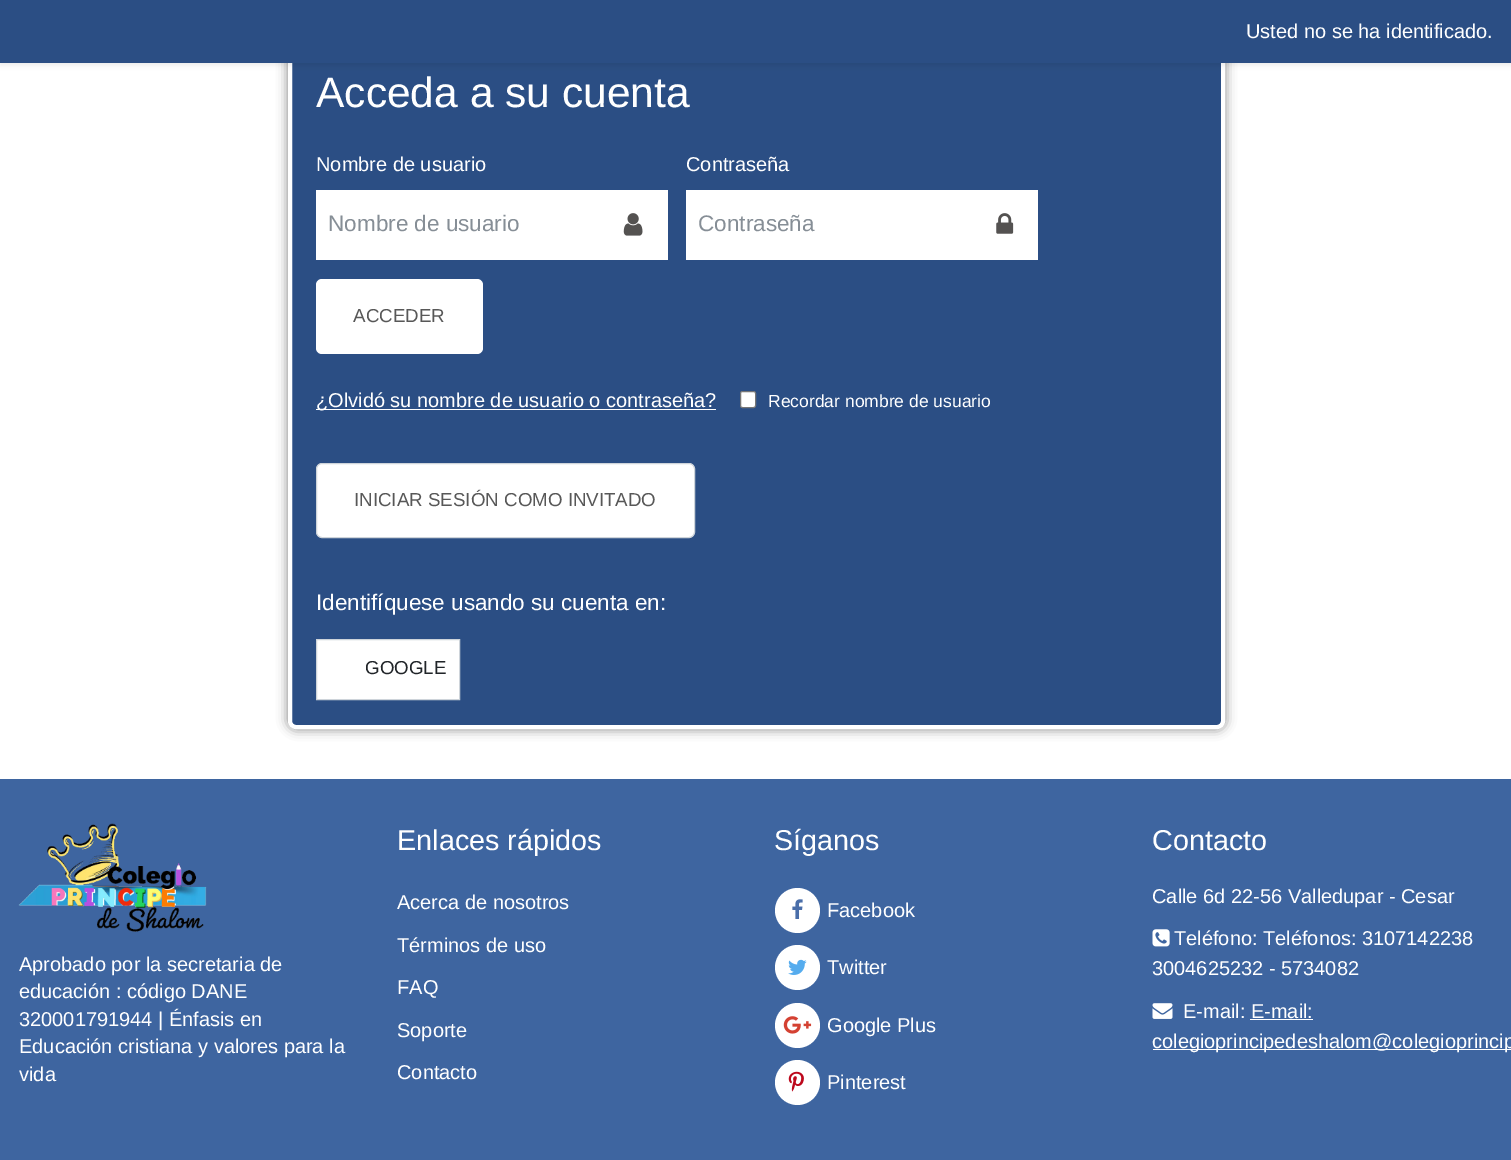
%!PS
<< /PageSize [1511 1160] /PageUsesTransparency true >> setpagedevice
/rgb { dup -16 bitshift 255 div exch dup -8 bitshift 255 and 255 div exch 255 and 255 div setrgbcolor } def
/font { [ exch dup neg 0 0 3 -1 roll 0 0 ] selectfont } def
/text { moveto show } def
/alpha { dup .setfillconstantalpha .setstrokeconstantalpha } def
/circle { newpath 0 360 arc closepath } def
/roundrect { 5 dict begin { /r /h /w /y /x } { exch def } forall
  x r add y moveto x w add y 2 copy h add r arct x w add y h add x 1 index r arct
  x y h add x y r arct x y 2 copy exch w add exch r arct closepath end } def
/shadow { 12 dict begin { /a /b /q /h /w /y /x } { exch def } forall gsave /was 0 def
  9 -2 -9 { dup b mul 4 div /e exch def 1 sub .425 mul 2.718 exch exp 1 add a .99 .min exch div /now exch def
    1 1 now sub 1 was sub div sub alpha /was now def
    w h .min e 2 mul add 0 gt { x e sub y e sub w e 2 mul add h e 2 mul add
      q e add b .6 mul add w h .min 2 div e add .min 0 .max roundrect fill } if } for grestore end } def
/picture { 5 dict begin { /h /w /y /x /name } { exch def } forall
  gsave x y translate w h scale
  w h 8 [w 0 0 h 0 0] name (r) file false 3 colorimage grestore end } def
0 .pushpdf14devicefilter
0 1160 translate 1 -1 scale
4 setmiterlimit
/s1 { /LiberationSans-Regular 20 font 16#FFFFFF rgb } def
/s2 { /LiberationSans-Regular 42.5 font 16#FFFFFF rgb } def
/s3 { /LiberationSans-Regular 22.5 font 16#868E96 rgb } def
/s4 { /LiberationSans-Regular 18.75 font 16#585858 rgb } def
/s5 { /LiberationSans-Regular 17.5 font 16#FFFFFF rgb } def
/s6 { /LiberationSans-Regular 22.5 font 16#FFFFFF rgb } def
/s7 { /LiberationSans-Regular 18.75 font 16#212529 rgb } def
/s8 { /LiberationSans-Regular 28.75 font 16#FFFFFF rgb } def
16#FFFFFF rgb
0 0 1511 1160 rectfill
16#000000 rgb
288 51 937 678 8 5.5 0.5 shadow
16#2B4E84 rgb
290 53 933 674 6 roundrect gsave fill grestore
16#FFFFFF rgb
4 setlinewidth
stroke
16#000000 rgb
0 3 1511 62 0 2.5 0.08 shadow
16#2B4E84 rgb
0 0 1511 63 rectfill
s1
(Usted no se ha identificado.) 1246 38 text
s2
(Acceda a su cuenta) 316 107 text
s1
(Nombre de usuario) 316 171 text
316 190 352 70 rectfill
s3
(Nombre de usuario) 328 231 text
(pic1.raw) 623 213 20 23 picture
s1
(Contraseña) 686 171 text
686 190 352 70 rectfill
s3
(Contraseña) 698 231 text
(pic2.raw) 996 213 18 21 picture
16#FFFFFF rgb
316 279 167 75 6 roundrect fill
s4
(ACCEDER) 353 322 text
16#FFFFFF rgb
316 409 400 1 rectfill
s1
(¿Olvidó su nombre de usuario o contraseña?) 316 407 text
740.5 391.5 15 16 2 roundrect gsave fill grestore
16#767676 rgb
1 setlinewidth
stroke
s5
(Recordar nombre de usuario) 768 407 text
316.5 463.5 378 74 5.5 roundrect gsave fill grestore
16#CED4DA rgb
stroke
s4
(INICIAR SESIÓN COMO INVITADO) 354 506 text
s6
(Identifíquese usando su cuenta en:) 316 610 text
316.5 639.5 moveto 459.5 639.5 lineto 459.5 699.5 lineto 316.5 699.5 lineto closepath gsave fill grestore
16#CED4DA rgb
stroke
s7
(GOOGLE) 365 674 text
16#3E65A0 rgb
0 779 1511 381 rectfill
(pic3.raw) 18 823 189 109 picture
s1
(Aprobado por la secretaria de) 19 971 text
(educación : código DANE) 19 998 text
(320001791944 | Énfasis en) 19 1026 text
(Educación cristiana y valores para la) 19 1053 text
(vida) 19 1081 text
s8
(Enlaces rápidos) 397 850 text
s1
(Acerca de nosotros) 397 909 text
(Términos de uso) 397 952 text
(FAQ) 397 994 text
(Soporte) 397 1037 text
(Contacto) 397 1079 text
s8
(Síganos) 774 850 text
797.5 910.5 22.5 circle fill
(pic4.raw) 792 899 11 20 picture
s1
(Facebook) 827 917 text
797.5 967.5 22.5 circle fill
(pic5.raw) 788 959 19 16 picture
(Twitter) 827 974 text
797.5 1025.5 22.5 circle fill
(pic6.raw) 783 1016 29 18 picture
(Google Plus) 827 1032 text
797.5 1082.5 22.5 circle fill
(pic7.raw) 788 1071 16 21 picture
(Pinterest) 827 1089 text
s8
(Contacto) 1152 850 text
s1
(Calle 6d 22-56 Valledupar - Cesar) 1152 903 text
(pic8.raw) 1152 929 18 18 picture
(Teléfono: Teléfonos: 3107142238) 1174 945 text
(3004625232 - 5734082) 1152 975 text
(pic9.raw) 1152 1003 21 16 picture
(E-mail: E-mail:) 1183 1018 text
1153 1049 358 1 rectfill
(colegioprincipedeshalom@colegioprincip) 1152 1048 text
1250 1019 63 1 rectfill
.poppdf14devicefilter showpage
